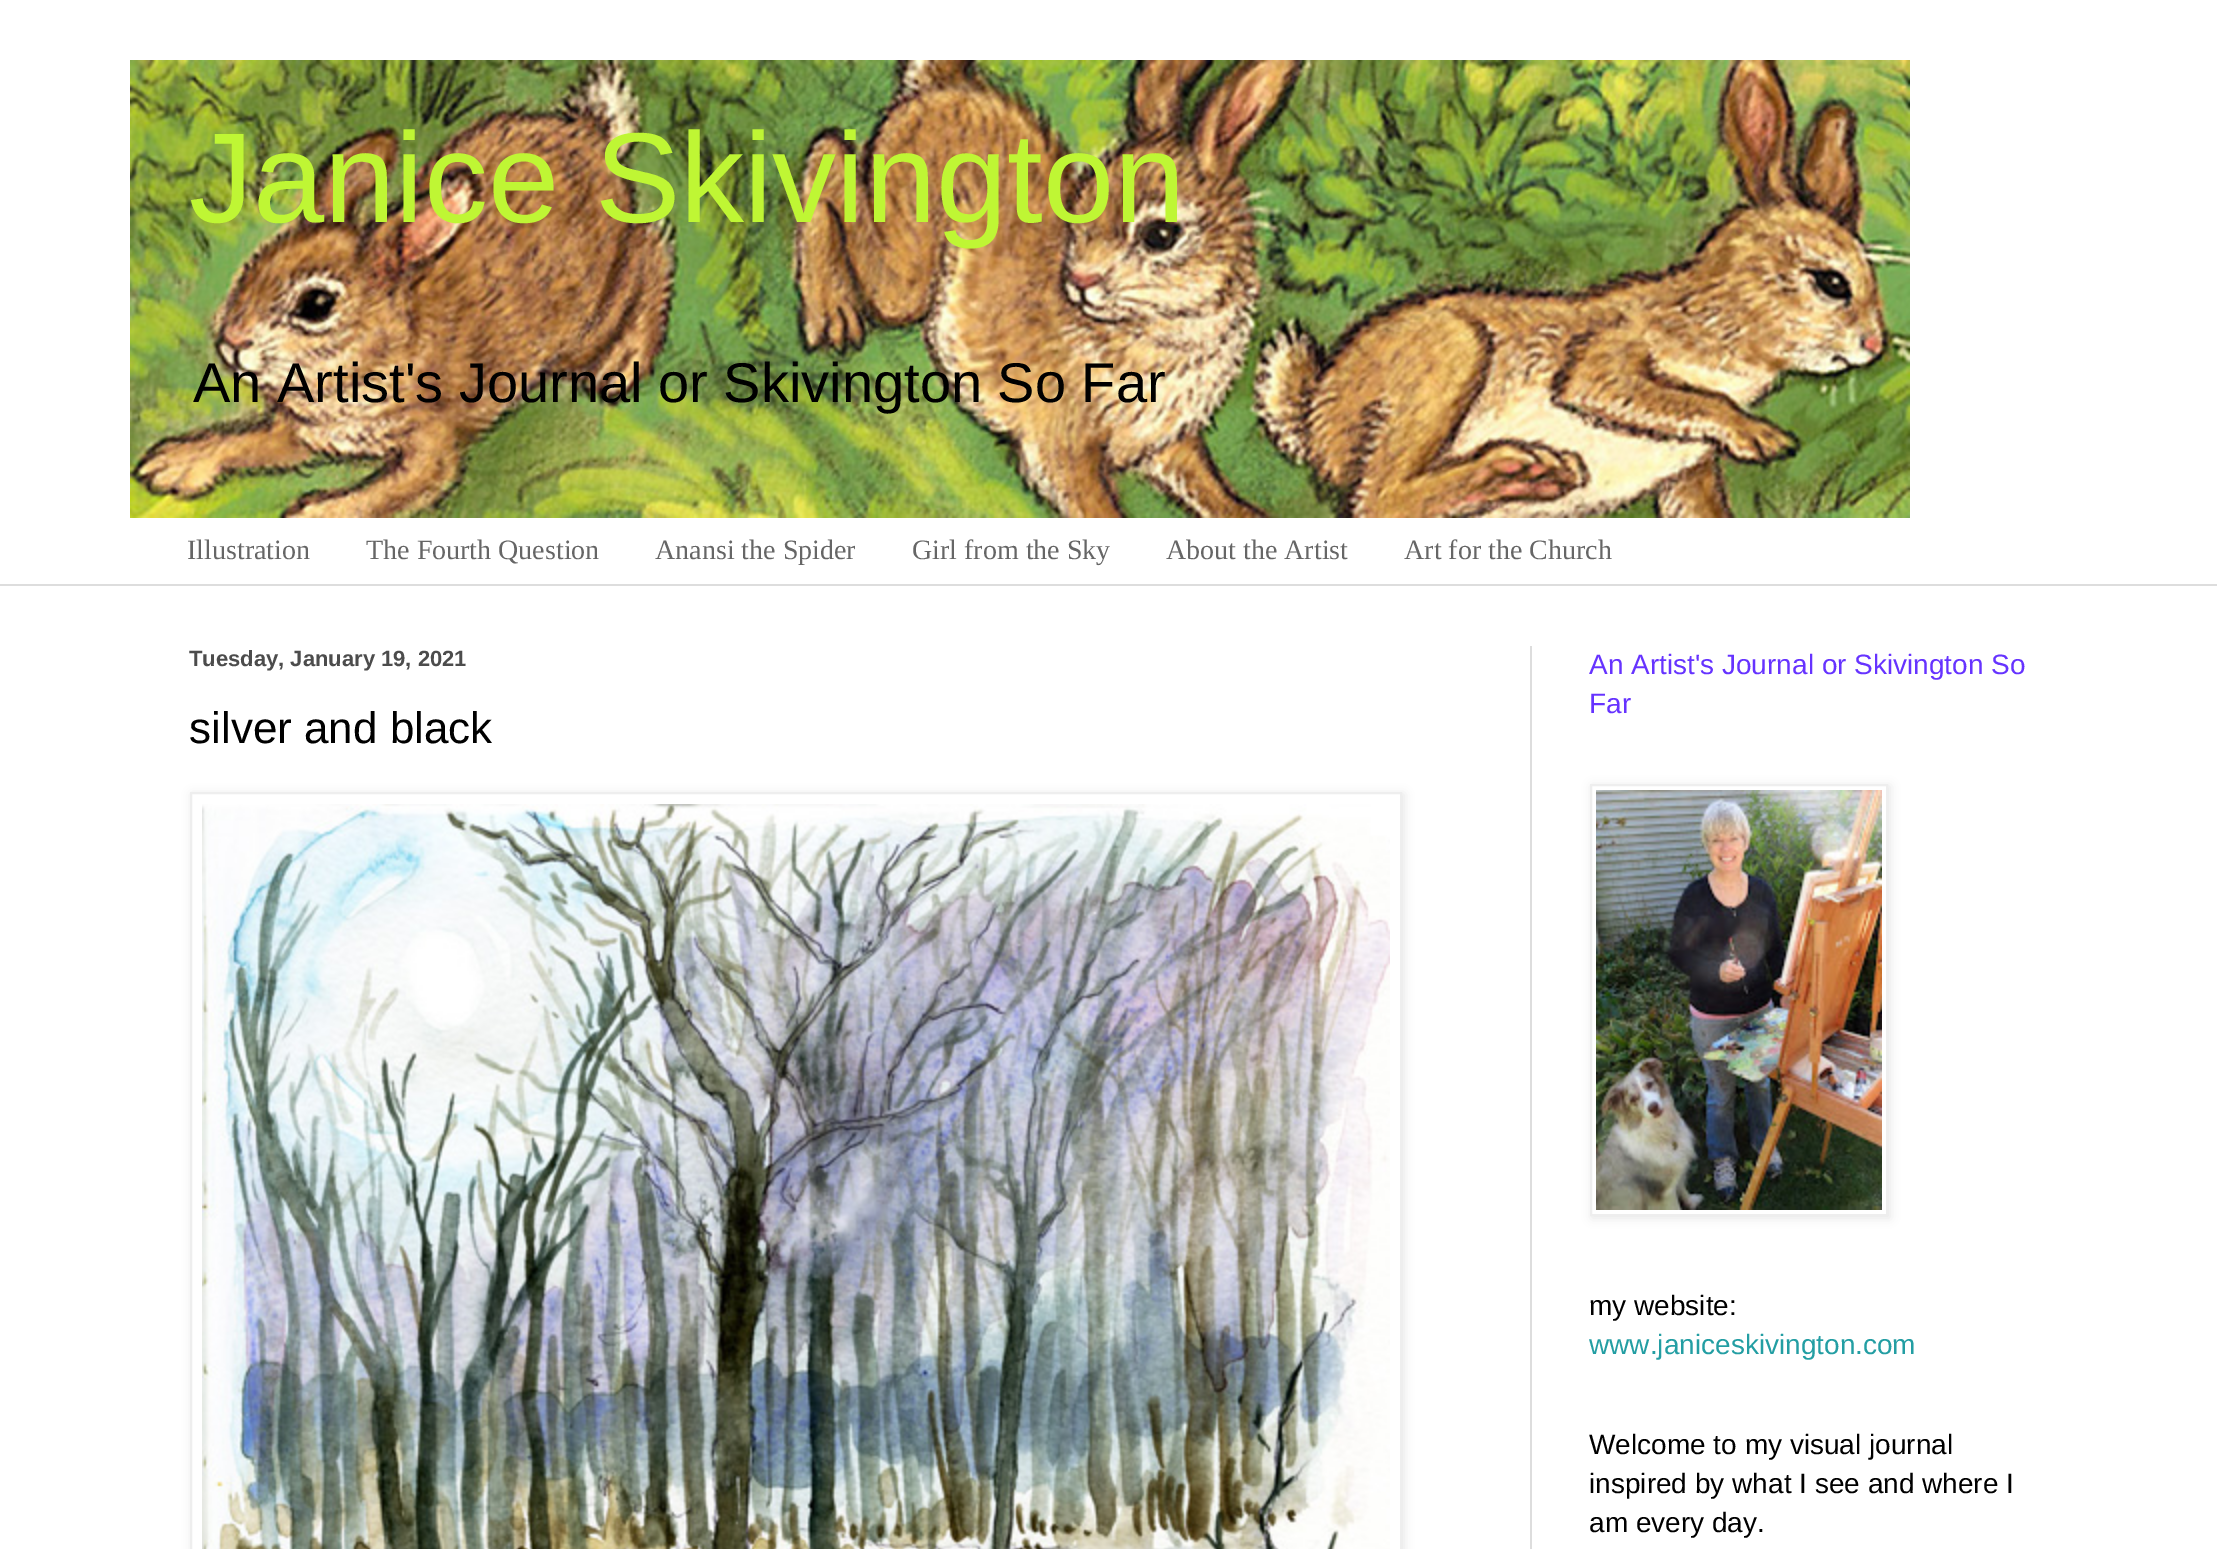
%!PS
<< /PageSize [2217 1549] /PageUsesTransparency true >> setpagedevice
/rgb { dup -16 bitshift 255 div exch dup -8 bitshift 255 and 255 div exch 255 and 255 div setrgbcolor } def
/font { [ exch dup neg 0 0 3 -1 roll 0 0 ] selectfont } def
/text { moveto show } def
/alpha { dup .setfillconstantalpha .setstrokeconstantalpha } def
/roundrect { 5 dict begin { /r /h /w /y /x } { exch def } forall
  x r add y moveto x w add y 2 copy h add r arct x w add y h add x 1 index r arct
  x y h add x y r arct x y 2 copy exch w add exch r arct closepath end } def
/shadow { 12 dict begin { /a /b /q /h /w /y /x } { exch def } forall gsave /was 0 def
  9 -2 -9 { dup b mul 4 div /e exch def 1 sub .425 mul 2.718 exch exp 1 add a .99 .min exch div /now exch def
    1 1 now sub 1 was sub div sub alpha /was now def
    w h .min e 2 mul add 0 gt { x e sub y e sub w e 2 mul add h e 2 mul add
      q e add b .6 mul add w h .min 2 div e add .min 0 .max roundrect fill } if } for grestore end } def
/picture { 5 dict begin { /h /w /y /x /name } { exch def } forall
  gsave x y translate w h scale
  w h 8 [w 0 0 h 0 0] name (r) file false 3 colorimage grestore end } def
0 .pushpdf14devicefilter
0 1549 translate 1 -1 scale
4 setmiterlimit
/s1 { /LiberationSans-Regular 128 font 16#BFF634 rgb } def
/s2 { /LiberationSans-Regular 56 font 16#000000 rgb } def
/s3 { /LiberationSerif-Regular 28 font 16#666666 rgb } def
/s4 { /LiberationSans-Bold 22 font 16#4C4C4C rgb } def
/s5 { /LiberationSans-Regular 44 font 16#000000 rgb } def
/s6 { /LiberationSans-Regular 28 font 16#6633FF rgb } def
/s7 { /LiberationSans-Regular 28 font 16#000000 rgb } def
/s8 { /LiberationSans-Regular 28 font 16#239EA3 rgb } def
16#FFFFFF rgb
0 0 2217 1549 rectfill
(pic1.raw) 130 60 1780 458 picture
s1
(Janice Skivington) 189 222 text
s2
(An Artist's Journal or Skivington So Far) 193 402 text
s3
(Illustration) 187 559 text
(The Fourth Question) 366 559 text
(Anansi the Spider) 655 559 text
(Girl from the Sky) 912 559 text
(About the Artist) 1166 559 text
(Art for the Church) 1404 559 text
16#DDDDDD rgb
0 584 2217 2 rectfill
1530 646 2 903 rectfill
s4
(Tuesday, January 19, 2021) 189 666 text
s5
(silver and black) 189 743 text
gsave
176 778 moveto 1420 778 lineto 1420 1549 lineto 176 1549 lineto closepath 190 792 moveto 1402 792 lineto 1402 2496 lineto 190 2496 lineto closepath eoclip newpath
192 794 1212 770 0 5 0.1 shadow
grestore
16#EEEEEE rgb
2 setlinewidth
191 793 1210 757 rectstroke
(pic2.raw) 202 804 1188 745 picture
s6
(An Artist's Journal or Skivington So) 1589 674 text
(Far) 1589 713 text
gsave
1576 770 moveto 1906 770 lineto 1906 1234 lineto 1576 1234 lineto closepath 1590 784 moveto 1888 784 lineto 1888 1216 lineto 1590 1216 lineto closepath eoclip newpath
16#000000 rgb
1592 786 298 432 0 5 0.1 shadow
grestore
16#EEEEEE rgb
1591 785 296 430 rectstroke
(pic3.raw) 1596 790 286 420 picture
s7
(my website:) 1589 1315 text
s8
(www.janiceskivington.com) 1589 1354 text
s7
(Welcome to my visual journal) 1589 1454 text
(inspired by what I see and where I) 1589 1493 text
(am every day.) 1589 1532 text
.poppdf14devicefilter showpage
